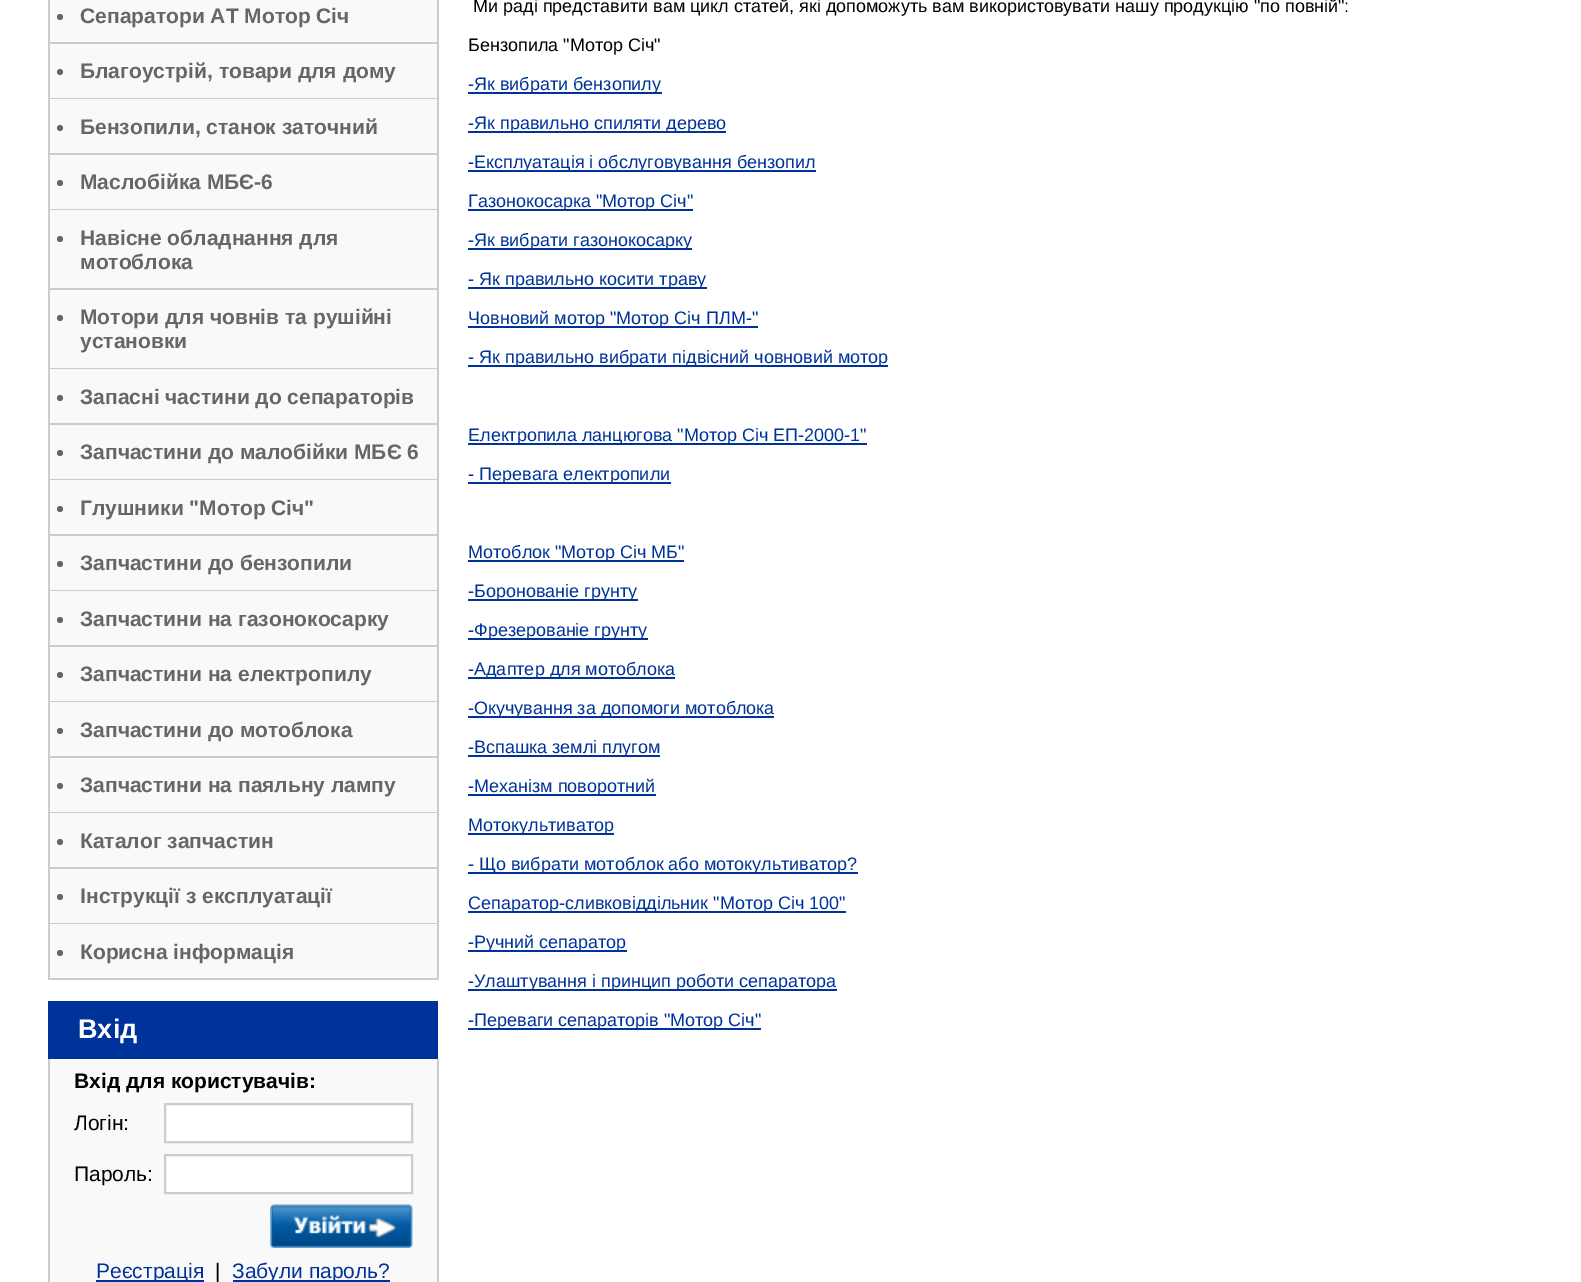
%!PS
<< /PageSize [1581 1282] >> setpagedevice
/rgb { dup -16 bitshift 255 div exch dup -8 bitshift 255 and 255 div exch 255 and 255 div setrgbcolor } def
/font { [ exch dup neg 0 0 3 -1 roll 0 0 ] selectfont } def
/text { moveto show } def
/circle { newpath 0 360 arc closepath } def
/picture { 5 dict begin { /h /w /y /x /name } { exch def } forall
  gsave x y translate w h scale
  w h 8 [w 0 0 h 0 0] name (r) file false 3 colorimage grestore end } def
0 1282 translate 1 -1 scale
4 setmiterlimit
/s1 { /LiberationSans-Bold 21 font 16#666666 rgb } def
/s2 { /LiberationSans-Bold 27 font 16#FFFFFF rgb } def
/s3 { /LiberationSans-Bold 21 font 16#000000 rgb } def
/s4 { /LiberationSans-Regular 21 font 16#000000 rgb } def
/s5 { /LiberationSans-Regular 21 font 16#003399 rgb } def
/s6 { /LiberationSans-Regular 18 font 16#000000 rgb } def
/s7 { /LiberationSans-Regular 18 font 16#003399 rgb } def
16#FFFFFF rgb
0 0 1581 1282 rectfill
16#F9F9F9 rgb
50 0 387 923 rectfill
16#CCCCCC rgb
437 0 2 980 rectfill
48 0 2 980 rectfill
50 42 387 2 rectfill
16#666666 rgb
60 17 3 circle fill
s1
(Сепаратори АТ Мотор Січ) 80 23 text
16#CCCCCC rgb
50 98 387 1 rectfill
16#666666 rgb
60 72 3 circle fill
(Благоустрій, товари для дому) 80 78 text
16#CCCCCC rgb
50 153 387 2 rectfill
16#666666 rgb
60 128 3 circle fill
(Бензопили, станок заточний) 80 134 text
16#CCCCCC rgb
50 209 387 1 rectfill
16#666666 rgb
60 183 3 circle fill
(Маслобійка МБЄ-6) 80 189 text
16#CCCCCC rgb
50 288 387 2 rectfill
16#666666 rgb
60 239 3 circle fill
(Навісне обладнання для) 80 245 text
(мотоблока) 80 269 text
16#CCCCCC rgb
50 368 387 1 rectfill
16#666666 rgb
60 318 3 circle fill
(Мотори для човнів та рушійні) 80 324 text
(установки) 80 348 text
16#CCCCCC rgb
50 423 387 2 rectfill
16#666666 rgb
60 398 3 circle fill
(Запасні частини до сепараторів) 80 404 text
16#CCCCCC rgb
50 479 387 1 rectfill
16#666666 rgb
60 453 3 circle fill
(Запчастини до малобійки МБЄ 6) 80 459 text
16#CCCCCC rgb
50 534 387 2 rectfill
16#666666 rgb
60 509 3 circle fill
(Глушники "Мотор Січ") 80 515 text
16#CCCCCC rgb
50 590 387 1 rectfill
16#666666 rgb
60 564 3 circle fill
(Запчастини до бензопили) 80 570 text
16#CCCCCC rgb
50 645 387 2 rectfill
16#666666 rgb
60 620 3 circle fill
(Запчастини на газонокосарку) 80 626 text
16#CCCCCC rgb
50 701 387 1 rectfill
16#666666 rgb
60 675 3 circle fill
(Запчастини на електропилу) 80 681 text
16#CCCCCC rgb
50 756 387 2 rectfill
16#666666 rgb
60 731 3 circle fill
(Запчастини до мотоблока) 80 737 text
16#CCCCCC rgb
50 812 387 1 rectfill
16#666666 rgb
60 786 3 circle fill
(Запчастини на паяльну лампу) 80 792 text
16#CCCCCC rgb
50 867 387 2 rectfill
16#666666 rgb
60 842 3 circle fill
(Каталог запчастин) 80 848 text
16#CCCCCC rgb
50 923 387 1 rectfill
16#666666 rgb
60 897 3 circle fill
(Інструкції з експлуатації) 80 903 text
16#F9F9F9 rgb
50 924 387 54 rectfill
16#CCCCCC rgb
50 978 387 2 rectfill
16#666666 rgb
60 953 3 circle fill
(Корисна інформація) 80 959 text
16#003399 rgb
48 1001 390 58 rectfill
s2
(Вхід) 78 1038 text
16#F9F9F9 rgb
50 1059 387 223 rectfill
16#CCCCCC rgb
437 1059 2 223 rectfill
48 1059 2 223 rectfill
s3
(Вхід для користувачів:) 74 1088 text
s4
(Логін:) 74 1130 text
16#FFFFFF rgb
165 1104 moveto 412 1104 lineto 412 1142 lineto 165 1142 lineto closepath gsave fill grestore
16#CCCCCC rgb
2 setlinewidth
stroke
s4
(Пароль:) 74 1181 text
16#FFFFFF rgb
165 1155 moveto 412 1155 lineto 412 1193 lineto 165 1193 lineto closepath gsave fill grestore
16#CCCCCC rgb
stroke
(pic1.raw) 270 1204 143 44 picture
16#003399 rgb
96 1280 108 2 rectfill
(Реєстрація) 96 1278 text
s4
(|) 215 1278 text
16#003399 rgb
233 1280 157 2 rectfill
(Забули пароль?) 232 1278 text
s6
(Ми раді представити вам цикл статей, які допоможуть вам використовувати нашу продукцію "по повній":) 473 12 text
(Бензопила "Мотор Січ") 468 51 text
16#003399 rgb
468 92 194 2 rectfill
(-Як вибрати бензопилу) 468 90 text
468 131 258 2 rectfill
(-Як правильно спиляти дерево) 468 129 text
468 170 348 2 rectfill
(-Експлуатація і обслуговування бензопил) 468 168 text
468 209 225 2 rectfill
(Газонокосарка "Мотор Січ") 468 207 text
468 248 224 2 rectfill
(-Як вибрати газонокосарку) 468 246 text
468 287 239 2 rectfill
(- Як правильно косити траву) 468 285 text
468 326 290 2 rectfill
(Човновий мотор "Мотор Січ ПЛМ-") 468 324 text
468 365 420 2 rectfill
(- Як правильно вибрати підвісний човновий мотор) 468 363 text
468 443 399 2 rectfill
(Електропила ланцюгова "Мотор Січ ЕП-2000-1") 468 441 text
468 482 203 2 rectfill
(- Перевага електропили) 468 480 text
468 560 216 2 rectfill
(Мотоблок "Мотор Січ МБ") 468 558 text
468 599 170 2 rectfill
(-Боронованіе грунту) 468 597 text
468 638 180 2 rectfill
(-Фрезерованіе грунту) 468 636 text
468 677 207 2 rectfill
(-Адаптер для мотоблока) 468 675 text
468 716 306 2 rectfill
(-Окучування за допомоги мотоблока) 468 714 text
468 755 192 2 rectfill
(-Вспашка землі плугом) 468 753 text
468 794 188 2 rectfill
(-Механізм поворотний) 468 792 text
468 833 146 2 rectfill
(Мотокультиватор) 468 831 text
468 872 390 2 rectfill
(- Що вибрати мотоблок або мотокультиватор?) 468 870 text
468 911 378 2 rectfill
(Сепаратор-сливковіддільник "Мотор Січ 100") 468 909 text
468 950 159 2 rectfill
(-Ручний сепаратор) 468 948 text
468 989 369 2 rectfill
(-Улаштування і принцип роботи сепаратора) 468 987 text
468 1028 293 2 rectfill
(-Переваги сепараторів "Мотор Січ") 468 1026 text
showpage
